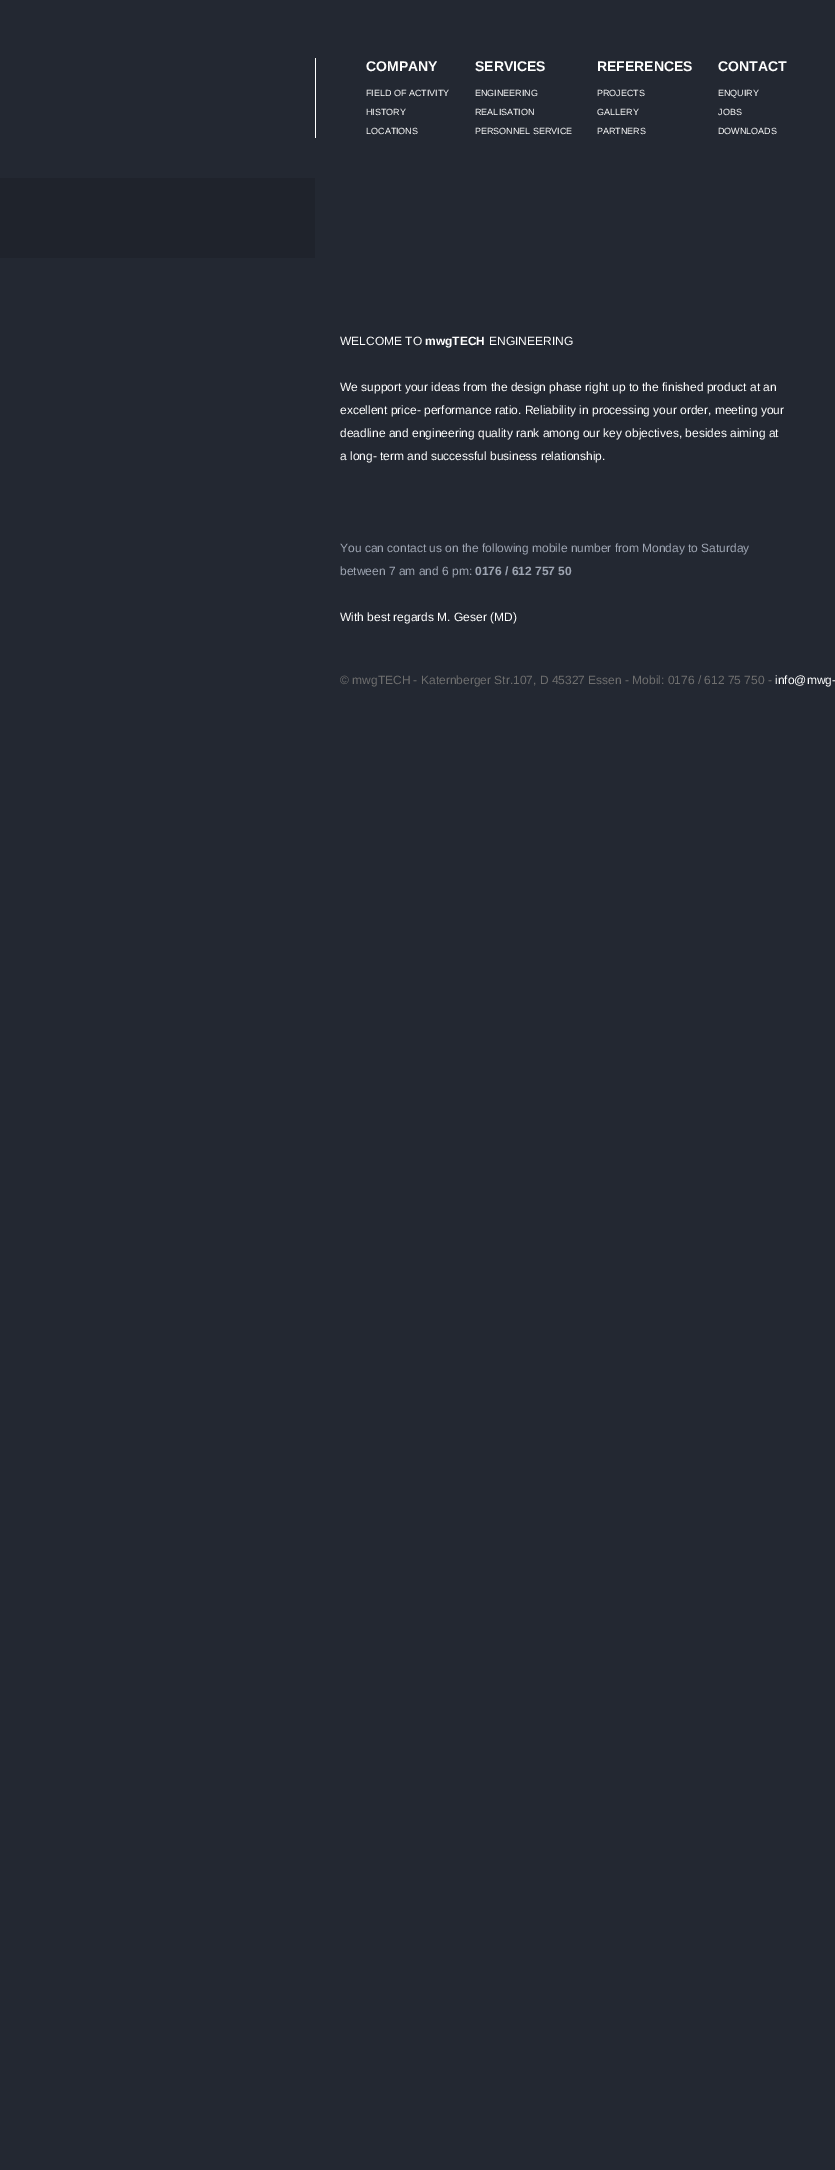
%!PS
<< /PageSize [835 2170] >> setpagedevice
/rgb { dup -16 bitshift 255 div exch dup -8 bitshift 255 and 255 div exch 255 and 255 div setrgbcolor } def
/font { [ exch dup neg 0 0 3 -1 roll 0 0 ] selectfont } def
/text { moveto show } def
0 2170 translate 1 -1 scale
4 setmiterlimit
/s1 { /LiberationSans-Bold 14 font 16#FFFFFF rgb } def
/s2 { /LiberationSans-Regular 9 font 16#FFFFFF rgb } def
/s3 { /LiberationSans-Regular 12 font 16#FFFFFF rgb } def
/s4 { /LiberationSans-Bold 12 font 16#FFFFFF rgb } def
/s5 { /LiberationSans-Regular 12 font 16#9EA5B2 rgb } def
/s6 { /LiberationSans-Bold 12 font 16#9EA5B2 rgb } def
/s7 { /LiberationSans-Regular 12 font 16#6E6E6E rgb } def
16#232832 rgb
0 0 835 2170 rectfill
16#FFFFFF rgb
315 58 1 80 rectfill
s1
(COMPANY) 366 71 text
s2
(FIELD OF ACTIVITY) 366 96 text
(HISTORY) 366 115 text
(LOCATIONS) 366 134 text
s1
(SERVICES) 475 71 text
s2
(ENGINEERING) 475 96 text
(REALISATION) 475 115 text
(PERSONNEL SERVICE) 475 134 text
s1
(REFERENCES) 597 71 text
s2
(PROJECTS) 597 96 text
(GALLERY) 597 115 text
(PARTNERS) 597 134 text
s1
(CONTACT) 718 71 text
s2
(ENQUIRY) 718 96 text
(JOBS) 718 115 text
(DOWNLOADS) 718 134 text
16#1F232C rgb
0 178 315 80 rectfill
s3
(WELCOME TO) 340 345 text
s4
(mwgTECH) 425 345 text
s3
(ENGINEERING) 489 345 text
(We support your ideas from the design phase right up to the finished product at an) 340 391 text
(excellent price- performance ratio. Reliability in processing your order, meeting your) 340 414 text
(deadline and engineering quality rank among our key objectives, besides aiming at) 340 437 text
(a long- term and successful business relationship.) 340 460 text
s5
(You can contact us on the following mobile number from Monday to Saturday) 340 552 text
(between 7 am and 6 pm:) 340 575 text
s6
(0176 / 612 757 50) 475 575 text
s3
(With best regards M. Geser \(MD\)) 340 621 text
s7
(© mwgTECH - Katernberger Str.107, D 45327 Essen - Mobil: 0176 / 612 75 750 -) 340 684 text
s3
(info@mwg-) 775 684 text
showpage
